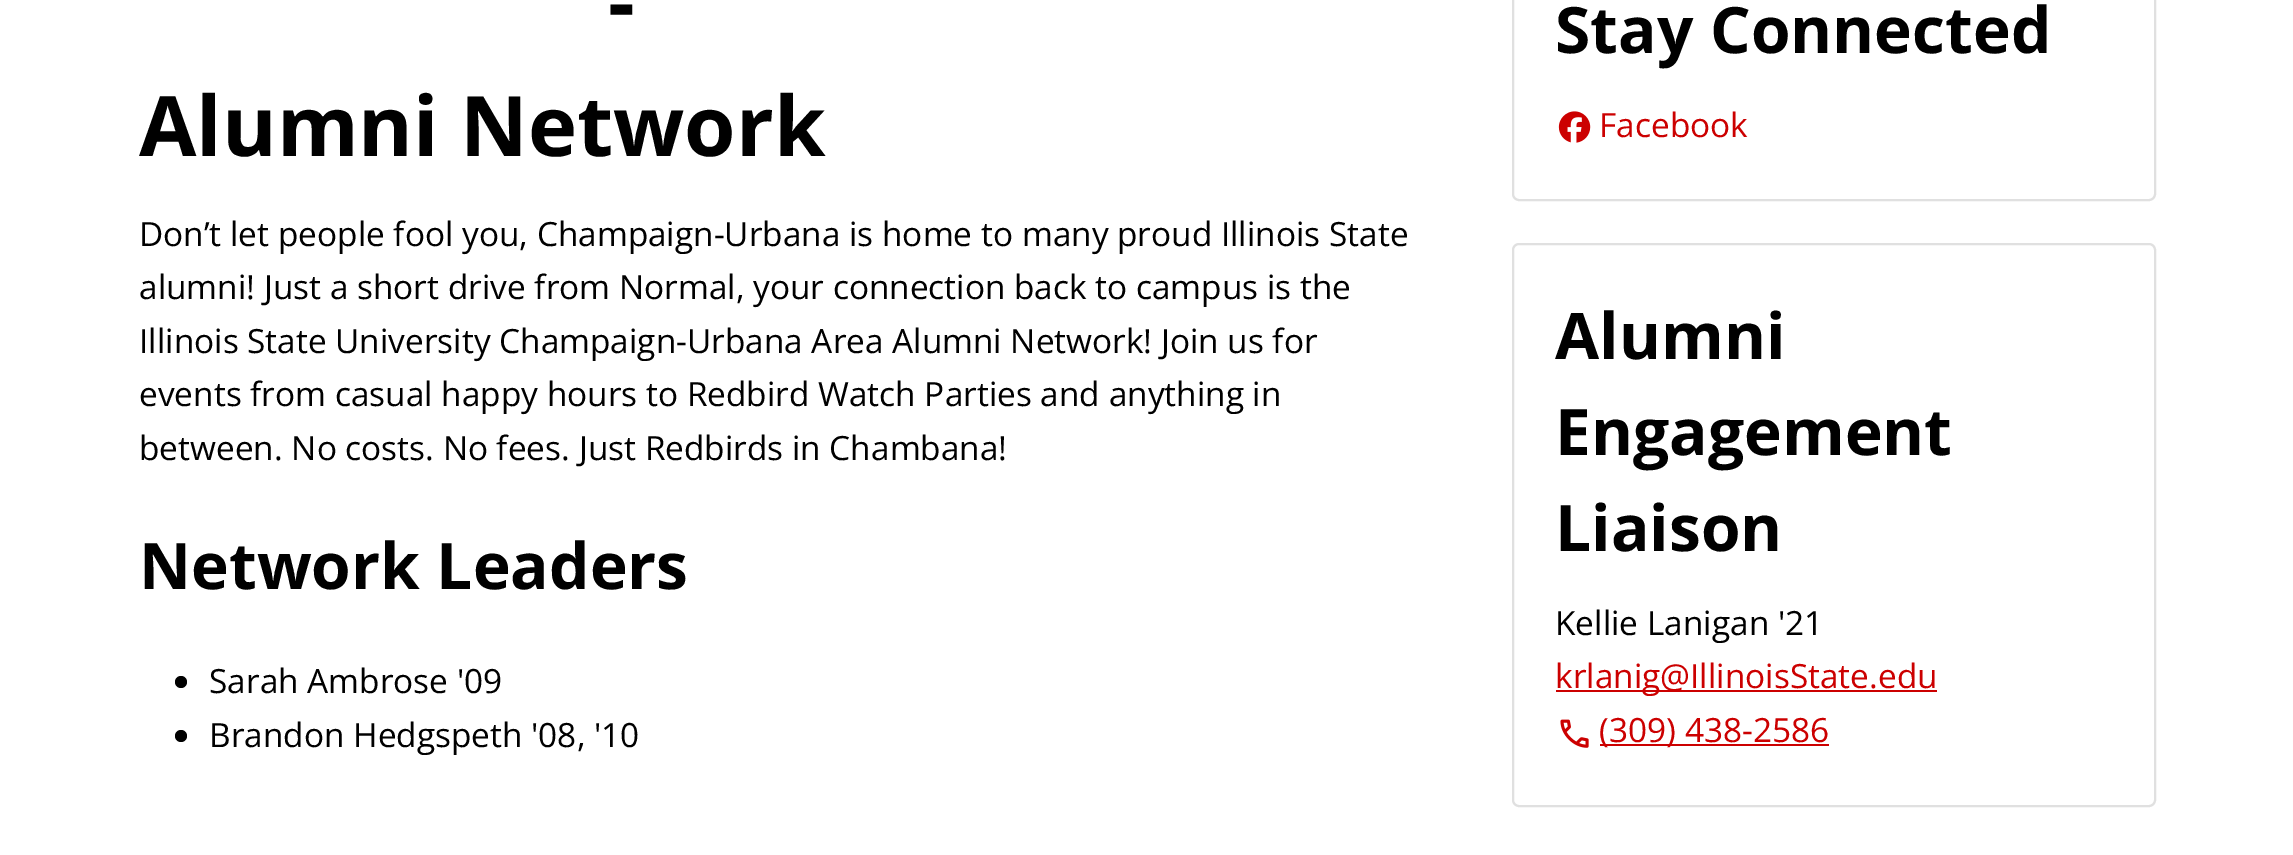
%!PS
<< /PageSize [2293 855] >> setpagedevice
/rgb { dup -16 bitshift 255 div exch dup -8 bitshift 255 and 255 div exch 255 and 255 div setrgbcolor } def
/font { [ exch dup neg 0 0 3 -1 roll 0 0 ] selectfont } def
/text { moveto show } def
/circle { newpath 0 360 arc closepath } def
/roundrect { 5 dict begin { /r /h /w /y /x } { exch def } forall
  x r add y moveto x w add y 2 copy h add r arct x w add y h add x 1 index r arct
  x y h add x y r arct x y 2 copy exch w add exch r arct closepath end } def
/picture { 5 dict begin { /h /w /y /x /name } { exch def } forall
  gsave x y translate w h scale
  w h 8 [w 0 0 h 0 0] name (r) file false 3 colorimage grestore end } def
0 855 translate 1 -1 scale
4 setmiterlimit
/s1 { /OpenSans-Bold 83.25 font 16#000000 rgb } def
/s2 { /OpenSans-Regular 33.4 font 16#000000 rgb } def
/s3 { /OpenSans-Bold 64 font 16#000000 rgb } def
/s4 { /OpenSans-Regular 33.4 font 16#CC0000 rgb } def
16#FFFFFF rgb
0 0 2293 855 rectfill
s1
(-) 608 32 text
(Alumni Network) 139 156 text
s2
(Don’t let people fool you, Champaign-Urbana is home to many proud Illinois State) 139 246 text
(alumni! Just a short drive from Normal, your connection back to campus is the) 139 299 text
139 353 moveto -0.1 0 32 (Illinois State University Champaign-Urbana Area Alumni Network! Join us for) widthshow
(events from casual happy hours to Redbird Watch Parties and anything in) 139 406 text
(between. No costs. No fees. Just Redbirds in Chambana!) 139 460 text
s3
(Network Leaders) 139 589 text
181 682 6 circle fill
s2
(Sarah Ambrose '09) 209 693 text
181 736 6 circle fill
(Brandon Hedgspeth '08, '10) 209 747 text
16#E0E0E0 rgb
2 setlinewidth
1513 -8 642 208 6 roundrect stroke
s3
(Stay Connected) 1555 53 text
(pic1.raw) 1558 111 33 32 picture
s4
(Facebook) 1599 137 text
16#E0E0E0 rgb
1513 244 642 562 6 roundrect stroke
s3
(Alumni) 1555 359 text
(Engagement) 1555 455 text
(Liaison) 1555 551 text
s2
(Kellie Lanigan '21) 1555 635 text
16#CC0000 rgb
1556 690 381 2 rectfill
(krlanig@IllinoisState.edu) 1555 688 text
(pic2.raw) 1560 719 29 29 picture
1600 744 229 2 rectfill
(\(309\) 438-2586) 1599 742 text
showpage
